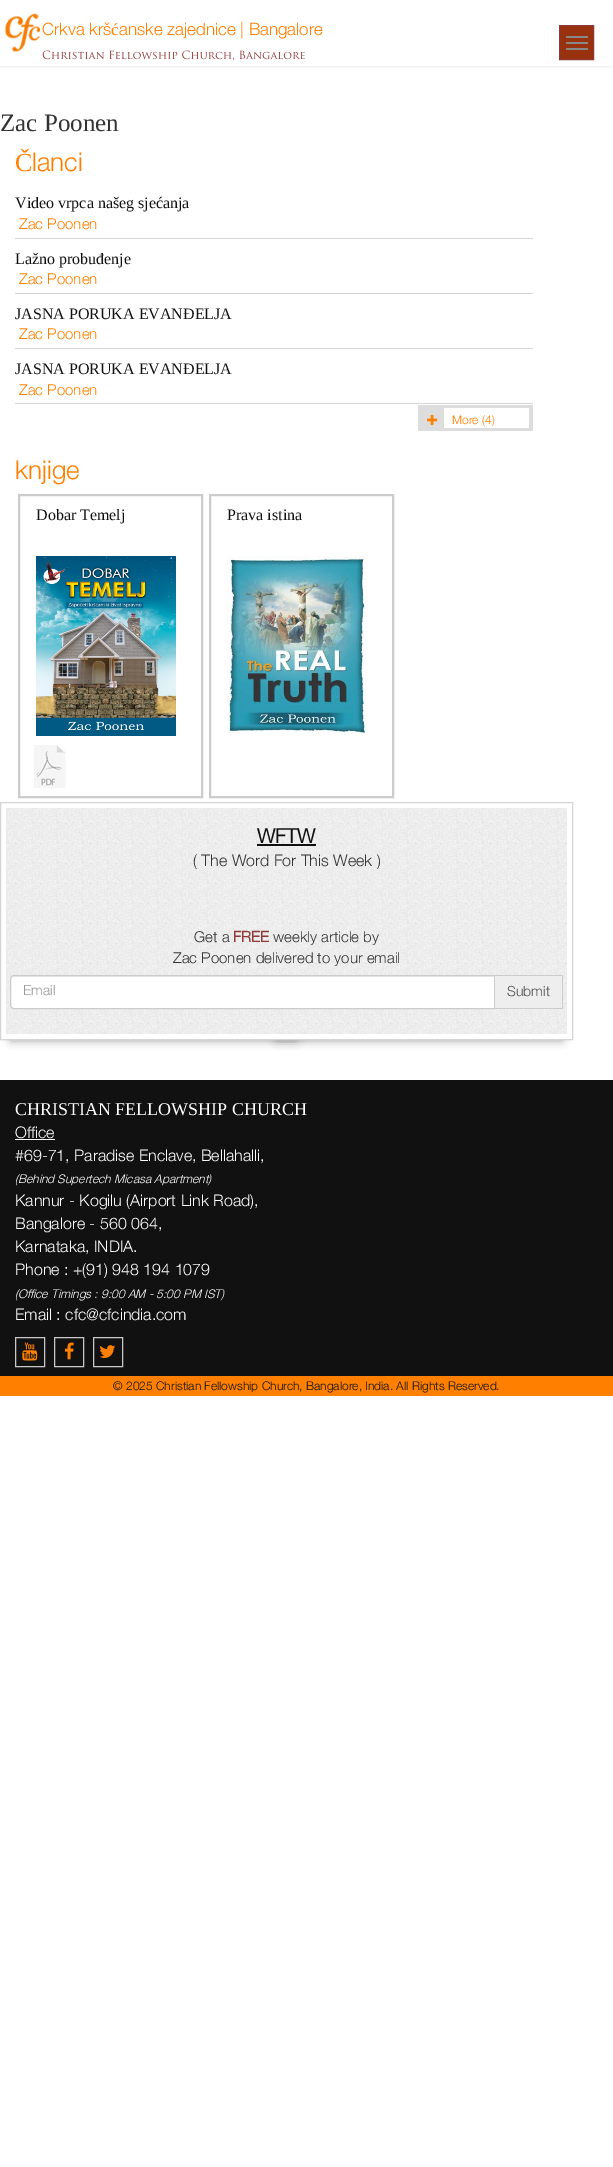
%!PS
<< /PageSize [613 2167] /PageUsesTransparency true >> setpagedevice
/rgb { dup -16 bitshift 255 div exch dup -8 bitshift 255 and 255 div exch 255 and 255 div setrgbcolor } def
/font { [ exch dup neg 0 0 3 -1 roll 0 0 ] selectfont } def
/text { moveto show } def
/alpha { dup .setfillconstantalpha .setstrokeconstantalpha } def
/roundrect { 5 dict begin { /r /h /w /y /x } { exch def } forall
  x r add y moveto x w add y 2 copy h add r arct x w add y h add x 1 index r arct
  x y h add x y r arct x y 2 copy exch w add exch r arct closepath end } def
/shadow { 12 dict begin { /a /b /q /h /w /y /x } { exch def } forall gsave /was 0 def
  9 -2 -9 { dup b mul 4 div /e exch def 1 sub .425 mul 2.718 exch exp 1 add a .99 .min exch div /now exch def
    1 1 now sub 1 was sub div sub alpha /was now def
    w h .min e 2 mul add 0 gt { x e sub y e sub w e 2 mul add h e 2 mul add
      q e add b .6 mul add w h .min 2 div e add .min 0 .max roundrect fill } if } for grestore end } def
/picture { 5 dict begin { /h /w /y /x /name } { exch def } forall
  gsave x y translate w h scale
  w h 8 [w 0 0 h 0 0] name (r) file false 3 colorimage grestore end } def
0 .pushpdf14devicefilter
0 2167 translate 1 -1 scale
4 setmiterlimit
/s1 { /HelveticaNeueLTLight-Light 17 font 16#FF8000 rgb } def
/s2 { /LiberationSerif-Regular 17 font 16#FF8000 rgb } def
/s3 { /LiberationSerif-Regular 25 font 16#333333 rgb } def
/s4 { /LiberationSerif-Regular 26 font 16#FF8000 rgb } def
/s5 { /HelveticaNeueLTLight-Light 26 font 16#FF8000 rgb } def
/s6 { /LiberationSerif-Regular 16 font 16#111111 rgb } def
/s7 { /HelveticaNeueLTLight-Light 15 font 16#FF8000 rgb } def
/s8 { /HelveticaNeueLTLight-Light 12 font 16#FF8000 rgb } def
/s9 { /HelveticaNeueLTLight-Bold 20 font 16#111111 rgb } def
/s10 { /HelveticaNeueLTLight-Light 16 font 16#333333 rgb } def
/s11 { /HelveticaNeueLTLight-Light 15 font 16#333333 rgb } def
/s12 { /HelveticaNeueLTLight-Bold 15 font 16#913838 rgb } def
/s13 { /HelveticaNeueLTLight-Light 14 font 16#999999 rgb } def
/s14 { /HelveticaNeueLTLight-Light 14 font 16#555555 rgb } def
/s15 { /LiberationSerif-Regular 18 font 16#FFFFFF rgb } def
/s16 { /HelveticaNeueLTLight-Light 16 font 16#FFFFFF rgb } def
/s17 { /HelveticaNeueLTLight-LightItalic 12 font 16#FFFFFF rgb } def
/s18 { /HelveticaNeueLTLight-Light 12 font 16#111111 rgb } def
16#FFFFFF rgb
0 0 613 2167 rectfill
gsave
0 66 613 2 rectclip
16#000000 rgb
0 1 613 66 0 2.5 0.07 shadow
grestore
(pic1.raw) 5 13 35 39 picture
s1
(Crkva krš) 42 35 text
s2
(ć) 111 35 text
s1
(anske zajednice | Bangalore) 119 35 text
16#97310E rgb
559.5 25.5 moveto 593.5 25.5 lineto 593.5 59.5 lineto 559.5 59.5 lineto closepath gsave fill grestore
16#913838 rgb
stroke
16#888888 rgb
566 36 22 2 1 roundrect fill
566 42 22 2 1 roundrect fill
566 48 22 2 1 roundrect fill
(pic2.raw) 42 50 263 10 picture
s3
(Zac Poonen) 0 131 text
s4
(Č) 15 171 text
s5
(lanci) 32 171 text
s6
(Video vrpca našeg sjećanja) 15 208 text
s7
(Zac Poonen) 19 229 text
16#D5D5D5 rgb
15 238 518 1 rectfill
s6
(Lažno probuđenje) 15 264 text
s7
(Zac Poonen) 19 284 text
16#D5D5D5 rgb
15 293 518 1 rectfill
s6
(JASNA PORUKA EVANĐELJA) 15 319 text
s7
(Zac Poonen) 19 339 text
16#D5D5D5 rgb
15 348 518 1 rectfill
s6
(JASNA PORUKA EVANĐELJA) 15 374 text
s7
(Zac Poonen) 19 395 text
16#D5D5D5 rgb
15 403 518 1 rectfill
16#DDDDDD rgb
418 405 115 3 rectfill
529 405 4 26 rectfill
418 428 115 3 rectfill
418 405 3 26 rectfill
421 408 23 20 rectfill
(pic3.raw) 427 414 11 11 picture
s8
(More \(4\)) 452 424 text
s5
(knjige) 15 479 text
16#CCCCCC rgb
2 setlinewidth
19 495 183 302 rectstroke
s6
(Dobar Temelj) 36 520 text
(pic4.raw) 36 556 140 180 picture
(pic5.raw) 34 745 32 43 picture
16#CCCCCC rgb
210 495 183 302 rectstroke
s6
(Prava istina) 227 520 text
(pic6.raw) 227 556 140 178 picture
16#777777 rgb
11 1007 285 32 0 5 1 shadow
277 1007 285 32 0 5 1 shadow
16#FFFFFF rgb
1 995 571 44 rectfill
16#D5D5D5 rgb
1 setlinewidth
0.5 802.5 572 237 rectstroke
(pic7.raw) 6 808 561 226 picture
s9
(WFTW) 257 843 text
257 844 59 2 rectfill
s10
(\( The Word For This Week \)) 193 866 text
s11
(Get a) 194 942 text
s12
(FREE) 233 942 text
s11
(weekly article by) 273 942 text
(Zac Poonen delivered to your email) 173 963 text
16#FFFFFF rgb
14 975 moveto 495 975 lineto 495 1009 lineto 14 1009 lineto 12 1009 10 1007 10 1005 curveto 10 979 lineto 10 977 12 975 14 975 curveto closepath fill
16#ECECEC rgb
14 977 moveto 494 977 lineto 494 976 lineto 14 976 lineto 12 976 11 978 11 980 curveto 11 978 12 977 14 977 curveto closepath fill
16#CCCCCC rgb
14 975.5 moveto 494.5 975.5 lineto 494.5 1008.5 lineto 14 1008.5 lineto 12 1008.5 10.5 1007 10.5 1005 curveto 10.5 979 lineto 10.5 977 12 975.5 14 975.5 curveto closepath stroke
s13
(Email) 23 995 text
16#EEEEEE rgb
495 976 67 32 rectfill
16#CCCCCC rgb
495 975 68 1 rectfill
562 975 1 34 rectfill
495 1008 68 1 rectfill
s14
(Submit) 507 996 text
16#111111 rgb
0 1080 613 296 rectfill
s15
(CHRISTIAN FELLOWSHIP CHURCH) 15 1115 text
s16
(Office) 15 1138 text
15 1139 40 1 rectfill
(#69-71, Paradise Enclave, Bellahalli,) 15 1161 text
s17
(\(Behind Supertech Micasa Apartment\)) 15 1183 text
s16
(Kannur - Kogilu \(Airport Link Road\),) 15 1206 text
(Bangalore - 560 064,) 15 1229 text
(Karnataka, INDIA.) 15 1252 text
(Phone : +\(91\) 948 194 1079) 15 1275 text
s17
(\(Office Timings : 9:00 AM - 5:00 PM IST\)) 15 1298 text
s16
(Email : cfc@cfcindia.com) 15 1320 text
16#C8C8C8 rgb
15.5 1337.5 29 29 rectstroke
(pic8.raw) 22 1342 16 19 picture
54.5 1337.5 29 29 rectstroke
(pic9.raw) 64 1342 10 18 picture
93.5 1337.5 29 29 rectstroke
(pic10.raw) 99 1345 17 13 picture
16#FF8000 rgb
0 1376 613 20 rectfill
s18
(© 2025 Christian Fellowship Church, Bangalore, India. All Rights Reserved.) 113 1390 text
.poppdf14devicefilter showpage
